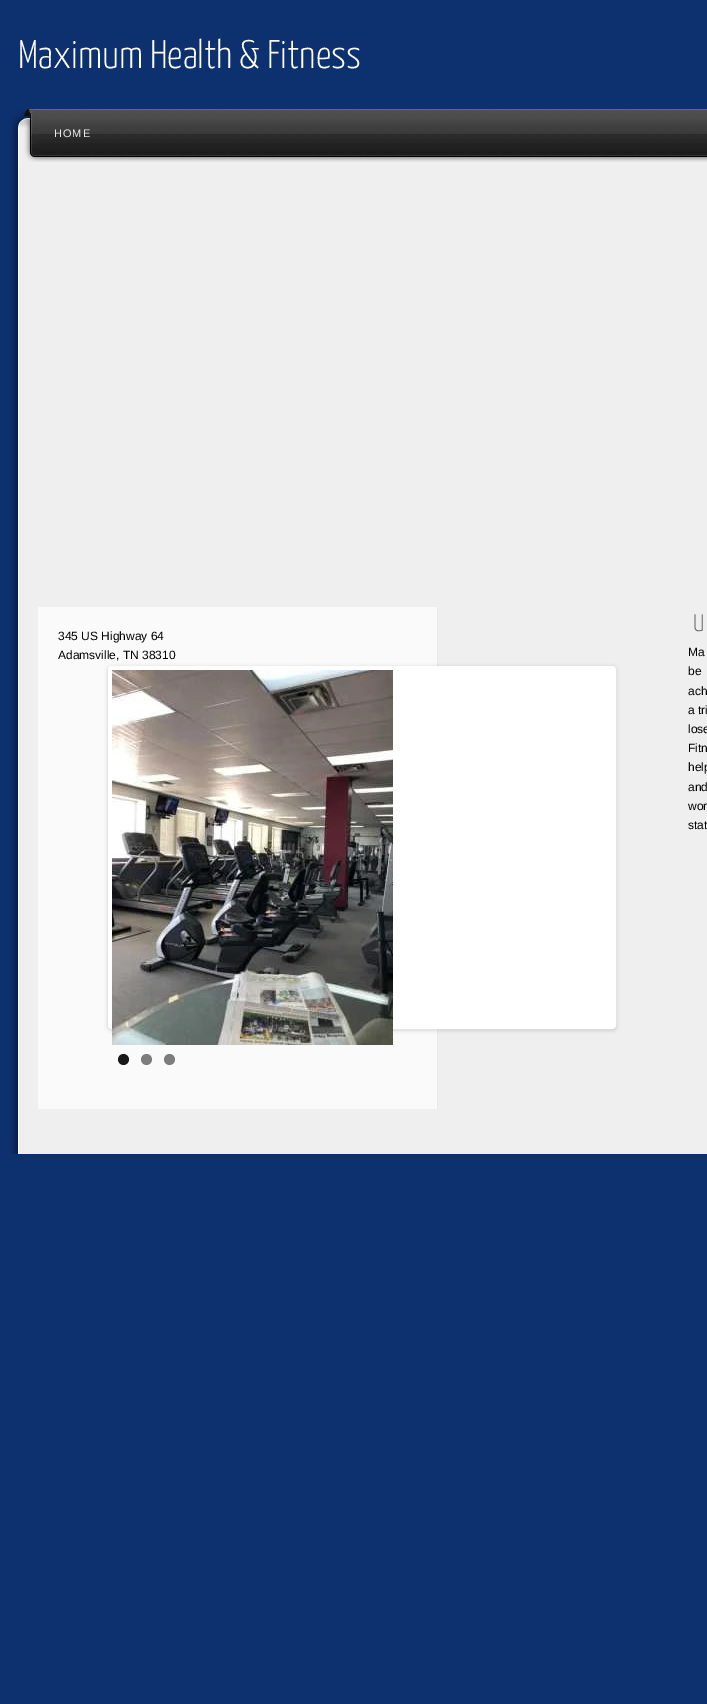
%!PS
<< /PageSize [707 1704] /PageUsesTransparency true >> setpagedevice
/rgb { dup -16 bitshift 255 div exch dup -8 bitshift 255 and 255 div exch 255 and 255 div setrgbcolor } def
/font { [ exch dup neg 0 0 3 -1 roll 0 0 ] selectfont } def
/text { moveto show } def
/alpha { dup .setfillconstantalpha .setstrokeconstantalpha } def
/circle { newpath 0 360 arc closepath } def
/roundrect { 5 dict begin { /r /h /w /y /x } { exch def } forall
  x r add y moveto x w add y 2 copy h add r arct x w add y h add x 1 index r arct
  x y h add x y r arct x y 2 copy exch w add exch r arct closepath end } def
/shadow { 12 dict begin { /a /b /q /h /w /y /x } { exch def } forall gsave /was 0 def
  9 -2 -9 { dup b mul 4 div /e exch def 1 sub .425 mul 2.718 exch exp 1 add a .99 .min exch div /now exch def
    1 1 now sub 1 was sub div sub alpha /was now def
    w h .min e 2 mul add 0 gt { x e sub y e sub w e 2 mul add h e 2 mul add
      q e add b .6 mul add w h .min 2 div e add .min 0 .max roundrect fill } if } for grestore end } def
/picture { 5 dict begin { /h /w /y /x /name } { exch def } forall
  gsave x y translate w h scale
  w h 8 [w 0 0 h 0 0] name (r) file false 3 colorimage grestore end } def
0 .pushpdf14devicefilter
0 1704 translate 1 -1 scale
4 setmiterlimit
/s1 { /YanoneKaffeesatz-Light 40 font 16#FFFFFF rgb } def
/s2 { /LiberationSans-Regular 12 font 16#000000 rgb } def
/s3 { /YanoneKaffeesatz-Light 24 font 16#666666 rgb } def
16#0D306F rgb
0 0 707 1704 rectfill
s1
(Maximum Health & Fitness) 18 68 text
(pic1.raw) 10 110 697 58 picture
(pic2.raw) 24 109 15 53 picture
(pic3.raw) 39 109 668 53 picture
/LiberationSans-Regular 11 font
16#EAEAEA rgb
54 137 moveto 1 0 (HOME) ashow
(pic4.raw) 10 168 697 986 picture
(pic5.raw) 38 607 400 502 picture
s2
(345 US Highway 64) 58 640 text
(Adamsville, TN 38310) 58 659 text
108 667 508 363 4 2 0.2 shadow
16#FFFFFF rgb
110 668 504 359 2 roundrect gsave fill grestore
4 setlinewidth
stroke
(pic6.raw) 112 670 281 375 picture
16#191919 rgb
123.5 1059.5 5.5 circle fill
16#7D7D7D rgb
146.5 1059.5 5.5 circle fill
169.5 1059.5 5.5 circle fill
s3
(U) 693 631 text
s2
(Ma) 688 656 text
(be) 688 675 text
(ach) 688 695 text
(a tri) 688 714 text
(lose) 688 733 text
(Fitn) 688 752 text
(help) 688 771 text
(and) 688 791 text
(wor) 688 810 text
(stat) 688 829 text
.poppdf14devicefilter showpage
